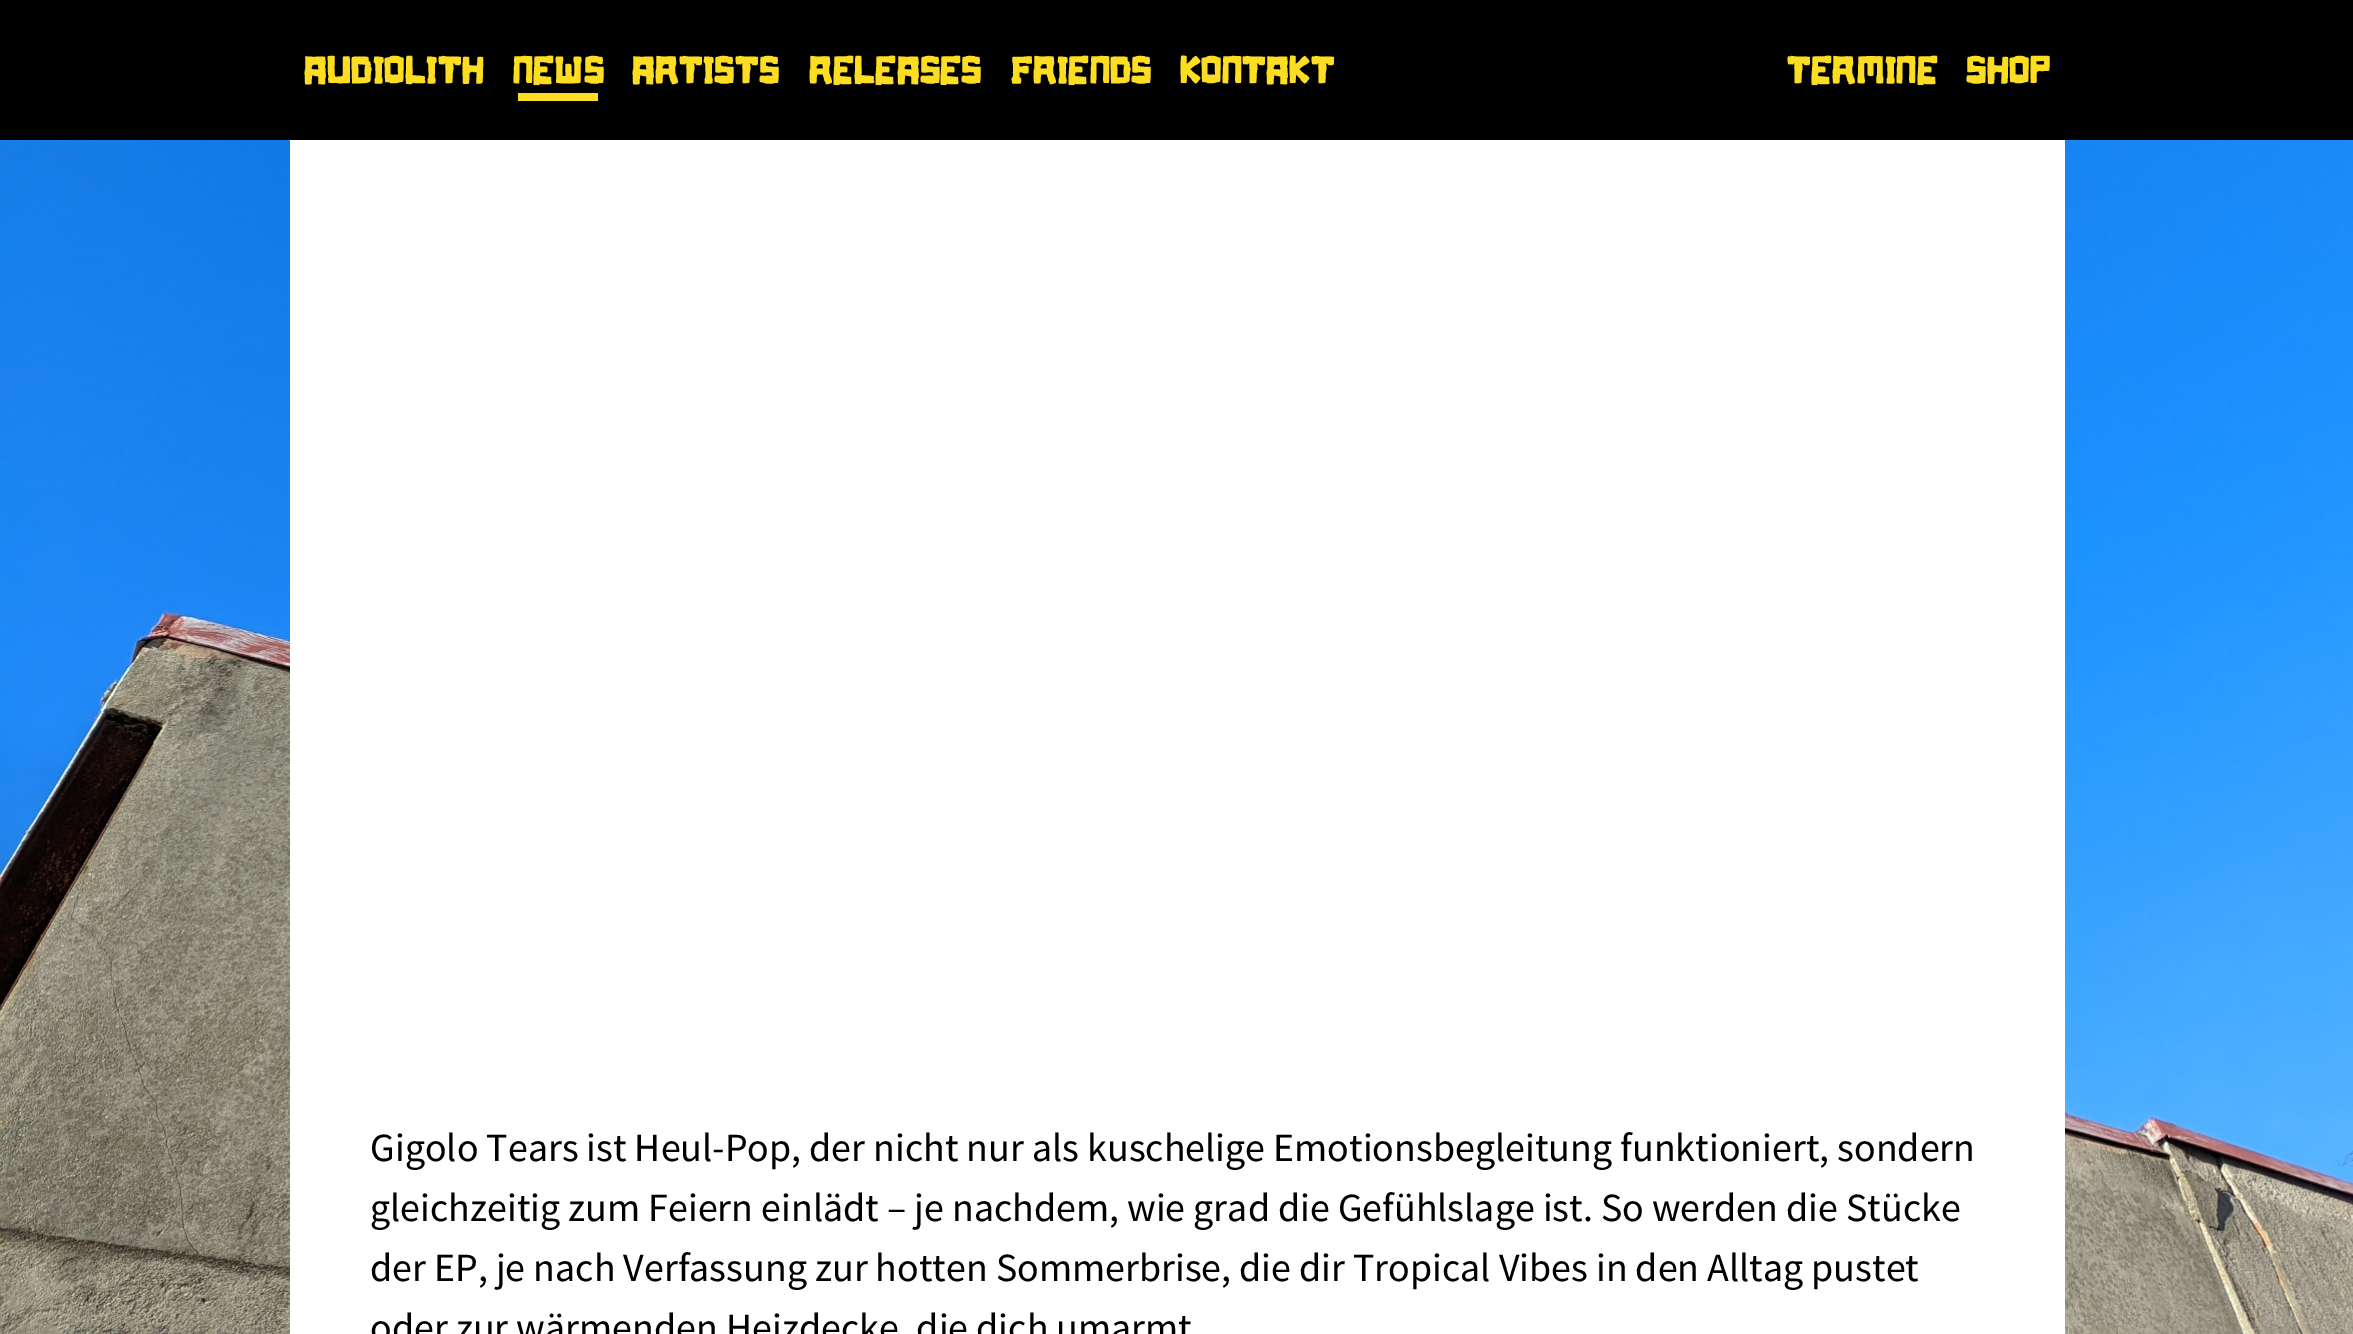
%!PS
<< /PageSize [2353 1334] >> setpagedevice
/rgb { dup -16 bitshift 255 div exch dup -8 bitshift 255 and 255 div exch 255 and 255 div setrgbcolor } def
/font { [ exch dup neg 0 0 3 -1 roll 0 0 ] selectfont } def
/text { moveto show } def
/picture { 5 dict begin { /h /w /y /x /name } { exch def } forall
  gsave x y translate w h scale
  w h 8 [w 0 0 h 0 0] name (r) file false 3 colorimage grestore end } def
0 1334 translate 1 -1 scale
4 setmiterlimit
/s1 { /SourceSansPro-Regular 40 font 16#000000 rgb } def
16#FFFFFF rgb
0 0 2353 1334 rectfill
(pic1.raw) 0 140 2353 1194 picture
16#000000 rgb
0 0 2353 140 rectfill
/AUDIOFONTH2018-Regular 40 font
16#FCDD22 rgb
304 83 moveto 0.25 0 (Audiolith) ashow
513 83 moveto 0.25 0 (News) ashow
518 93 80 8 rectfill
632 83 moveto 0.25 0 (Artists) ashow
809 83 moveto 0.25 0 (Releases) ashow
1011 83 moveto 0.25 0 (Friends) ashow
1180 83 moveto 0.25 0 (Kontakt) ashow
1787 83 moveto 0.25 0 (Termine) ashow
1966 83 moveto 0.25 0 (Shop) ashow
16#FFFFFF rgb
290 140 1775 1194 rectfill
s1
(Gigolo Tears ist Heul-Pop, der nicht nur als kuschelige Emotionsbegleitung funktioniert, sondern) 370 1161 text
(gleichzeitig zum Feiern einlädt – je nachdem, wie grad die Gefühlslage ist. So werden die Stücke) 370 1221 text
(der EP, je nach Verfassung zur hotten Sommerbrise, die dir Tropical Vibes in den Alltag pustet) 370 1281 text
(oder zur wärmenden Heizdecke, die dich umarmt) 370 1341 text
showpage
